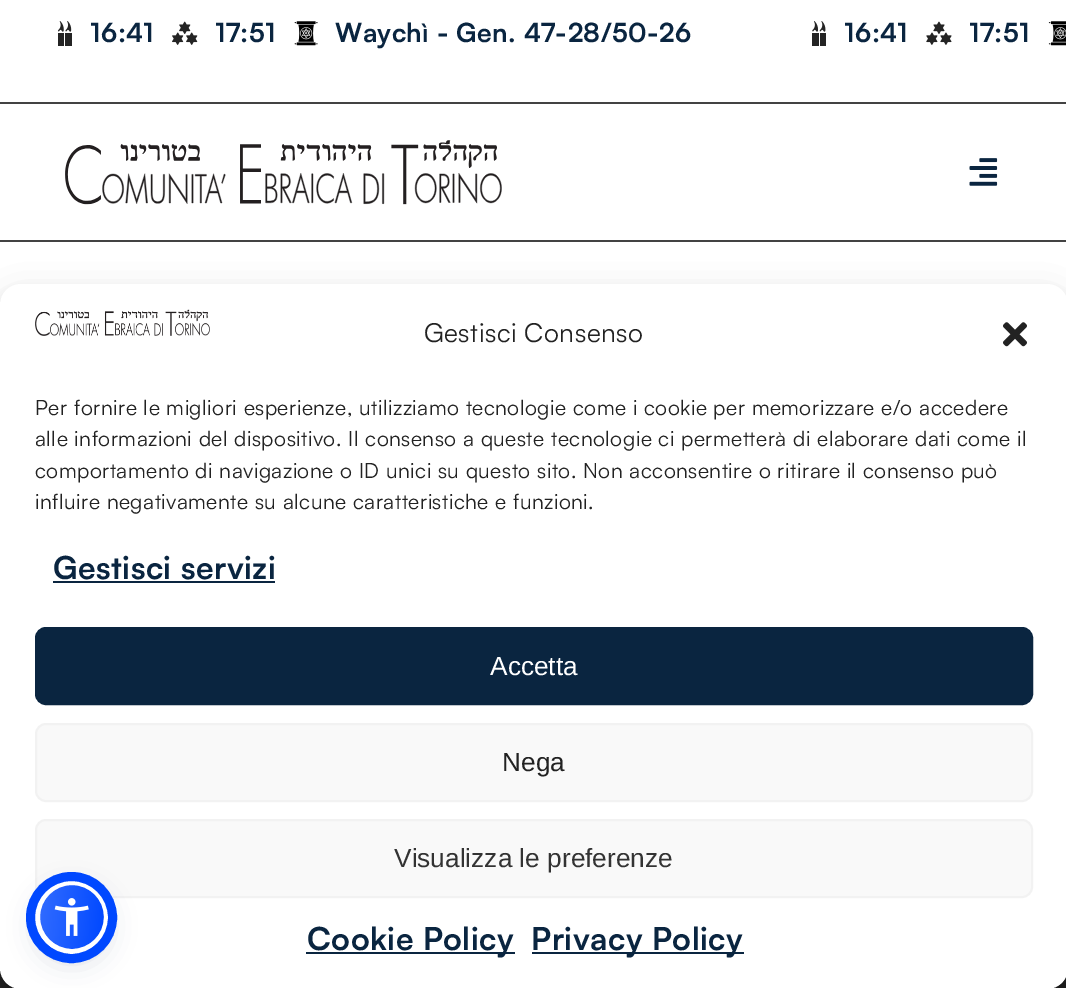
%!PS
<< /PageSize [1066 988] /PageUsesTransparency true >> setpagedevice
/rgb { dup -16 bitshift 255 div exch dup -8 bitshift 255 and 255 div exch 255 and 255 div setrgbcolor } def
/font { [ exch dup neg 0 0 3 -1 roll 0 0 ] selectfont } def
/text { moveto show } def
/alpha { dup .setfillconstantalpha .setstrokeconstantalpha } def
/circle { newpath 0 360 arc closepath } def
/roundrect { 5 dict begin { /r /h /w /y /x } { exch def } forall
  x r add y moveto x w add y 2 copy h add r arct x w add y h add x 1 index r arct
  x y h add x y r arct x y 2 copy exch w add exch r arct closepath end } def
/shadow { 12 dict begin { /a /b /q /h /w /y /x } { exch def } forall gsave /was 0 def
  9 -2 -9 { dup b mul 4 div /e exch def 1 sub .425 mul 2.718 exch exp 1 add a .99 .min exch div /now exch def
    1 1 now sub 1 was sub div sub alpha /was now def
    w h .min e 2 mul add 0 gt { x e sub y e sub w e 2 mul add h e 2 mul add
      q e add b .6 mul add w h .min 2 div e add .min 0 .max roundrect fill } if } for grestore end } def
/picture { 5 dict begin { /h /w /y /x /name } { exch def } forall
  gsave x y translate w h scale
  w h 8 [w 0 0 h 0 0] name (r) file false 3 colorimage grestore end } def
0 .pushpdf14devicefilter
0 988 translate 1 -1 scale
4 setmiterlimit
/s1 { /LiberationSans-Regular 26.25 font 16#FFFFFF rgb } def
/s2 { /LiberationSans-Regular 26.25 font 16#222222 rgb } def
/s3 { /LiberationSans-Regular 26.25 font 16#333333 rgb } def
16#FFFFFF rgb
0 0 1066 988 rectfill
(pic1.raw) 58 21 14 25 picture
/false-Bold 26.25 font
16#0A2540 rgb
90 42 moveto 0.4 0 (16:41) ashow
(pic2.raw) 172 21 26 24 picture
215 42 moveto 0.4 0 (17:51) ashow
(pic3.raw) 294 21 24 25 picture
335 42 moveto 0.4 0 (Waychì - Gen. 47-28/50-26) ashow
(pic4.raw) 812 21 14 25 picture
844 42 moveto 0.4 0 (16:41) ashow
(pic5.raw) 926 21 26 24 picture
969 42 moveto 0.4 0 (17:51) ashow
(pic6.raw) 1048 21 18 25 picture
16#434343 rgb
0 102 1066 2 rectfill
0 240 1066 2 rectfill
(pic7.raw) 65 140 437 65 picture
(pic8.raw) 969 158 29 28 picture
16#242424 rgb
0 968 1066 20 rectfill
16#000000 rgb
0 294 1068 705 21 5 0.23 shadow
0 301 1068 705 21 17.5 0.19 shadow
16#FFFFFF rgb
0 284 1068 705 21 roundrect fill
(pic9.raw) 35 309 175 27 picture
/false-Regular 26.25 font
16#222222 rgb
424 342 moveto 0.47 0 (Gestisci Consenso) ashow
(pic10.raw) 1003 322 24 25 picture
/false-Regular 21 font
35 415 moveto 0.47 0 (Per fornire le migliori esperienze, utilizziamo tecnologie come i cookie per memorizzare e/o accedere) ashow
35 446 moveto 0.47 0 (alle informazioni del dispositivo. Il consenso a queste tecnologie ci permetterà di elaborare dati come il) ashow
35 478 moveto 0.47 0 (comportamento di navigazione o ID unici su questo sito. Non acconsentire o ritirare il consenso può) ashow
35 509 moveto 0.47 0 (influire negativamente su alcune caratteristiche e funzioni.) ashow
/false-Bold 31.5 font
16#0A2540 rgb
53 579 moveto 0.47 0 (Gestisci servizi) ashow
53 581 222 2 rectfill
36 628 996 76 10 roundrect gsave fill grestore
2 setlinewidth
stroke
s1
(Accetta) 490 675 text
16#F9F9F9 rgb
36 724 996 77 10 roundrect gsave fill grestore
16#F2F2F2 rgb
stroke
s2
(Nega) 502 771 text
16#F9F9F9 rgb
36 820 996 77 10 roundrect gsave fill grestore
16#F2F2F2 rgb
stroke
s3
(Visualizza le preferenze) 394 867 text
16#0A2540 rgb
306 952 209 2 rectfill
/false-Bold 31.5 font
307 950 moveto 0.47 0 (Cookie Policy) ashow
532 952 212 2 rectfill
531 950 moveto 0.47 0 (Privacy Policy) ashow
16#5D6494 rgb
35 884 74 73 36.5 3.5 0.2 shadow
16#252C61 rgb
35 889 74 74 37 13 0.15 shadow
gsave
35 880 74 74 37 roundrect clip newpath
gsave 53 881 moveto 80 881 lineto 80 886 lineto 53 886 lineto closepath clip newpath
<< /ShadingType 2 /ColorSpace /DeviceRGB /Coords [37 850 106 858] /Extend [true true] /Function << /FunctionType 2 /Domain [0 1] /C0 [0.196 0.424 1] /C1 [0 0.282 1] /N 1 >> >> shfill grestore
gsave 40 886 moveto 103 886 lineto 103 949 lineto 40 949 lineto closepath clip newpath
<< /ShadingType 2 /ColorSpace /DeviceRGB /Coords [37 913 106 921] /Extend [true true] /Function << /FunctionType 2 /Domain [0 1] /C0 [0.196 0.424 1] /C1 [0 0.282 1] /N 1 >> >> shfill grestore
gsave 103 909 moveto 108 909 lineto 108 936 lineto 103 936 lineto closepath clip newpath
<< /ShadingType 2 /ColorSpace /DeviceRGB /Coords [100 913 169 921] /Extend [true true] /Function << /FunctionType 2 /Domain [0 1] /C0 [0.196 0.424 1] /C1 [0 0.282 1] /N 1 >> >> shfill grestore
grestore
16#FFFFFF rgb
5 setlinewidth
72 917 34.5 circle stroke
16#0048FF rgb
9 setlinewidth
71.5 917.5 41 circle stroke
(pic11.raw) 54 898 35 38 picture
.poppdf14devicefilter showpage
